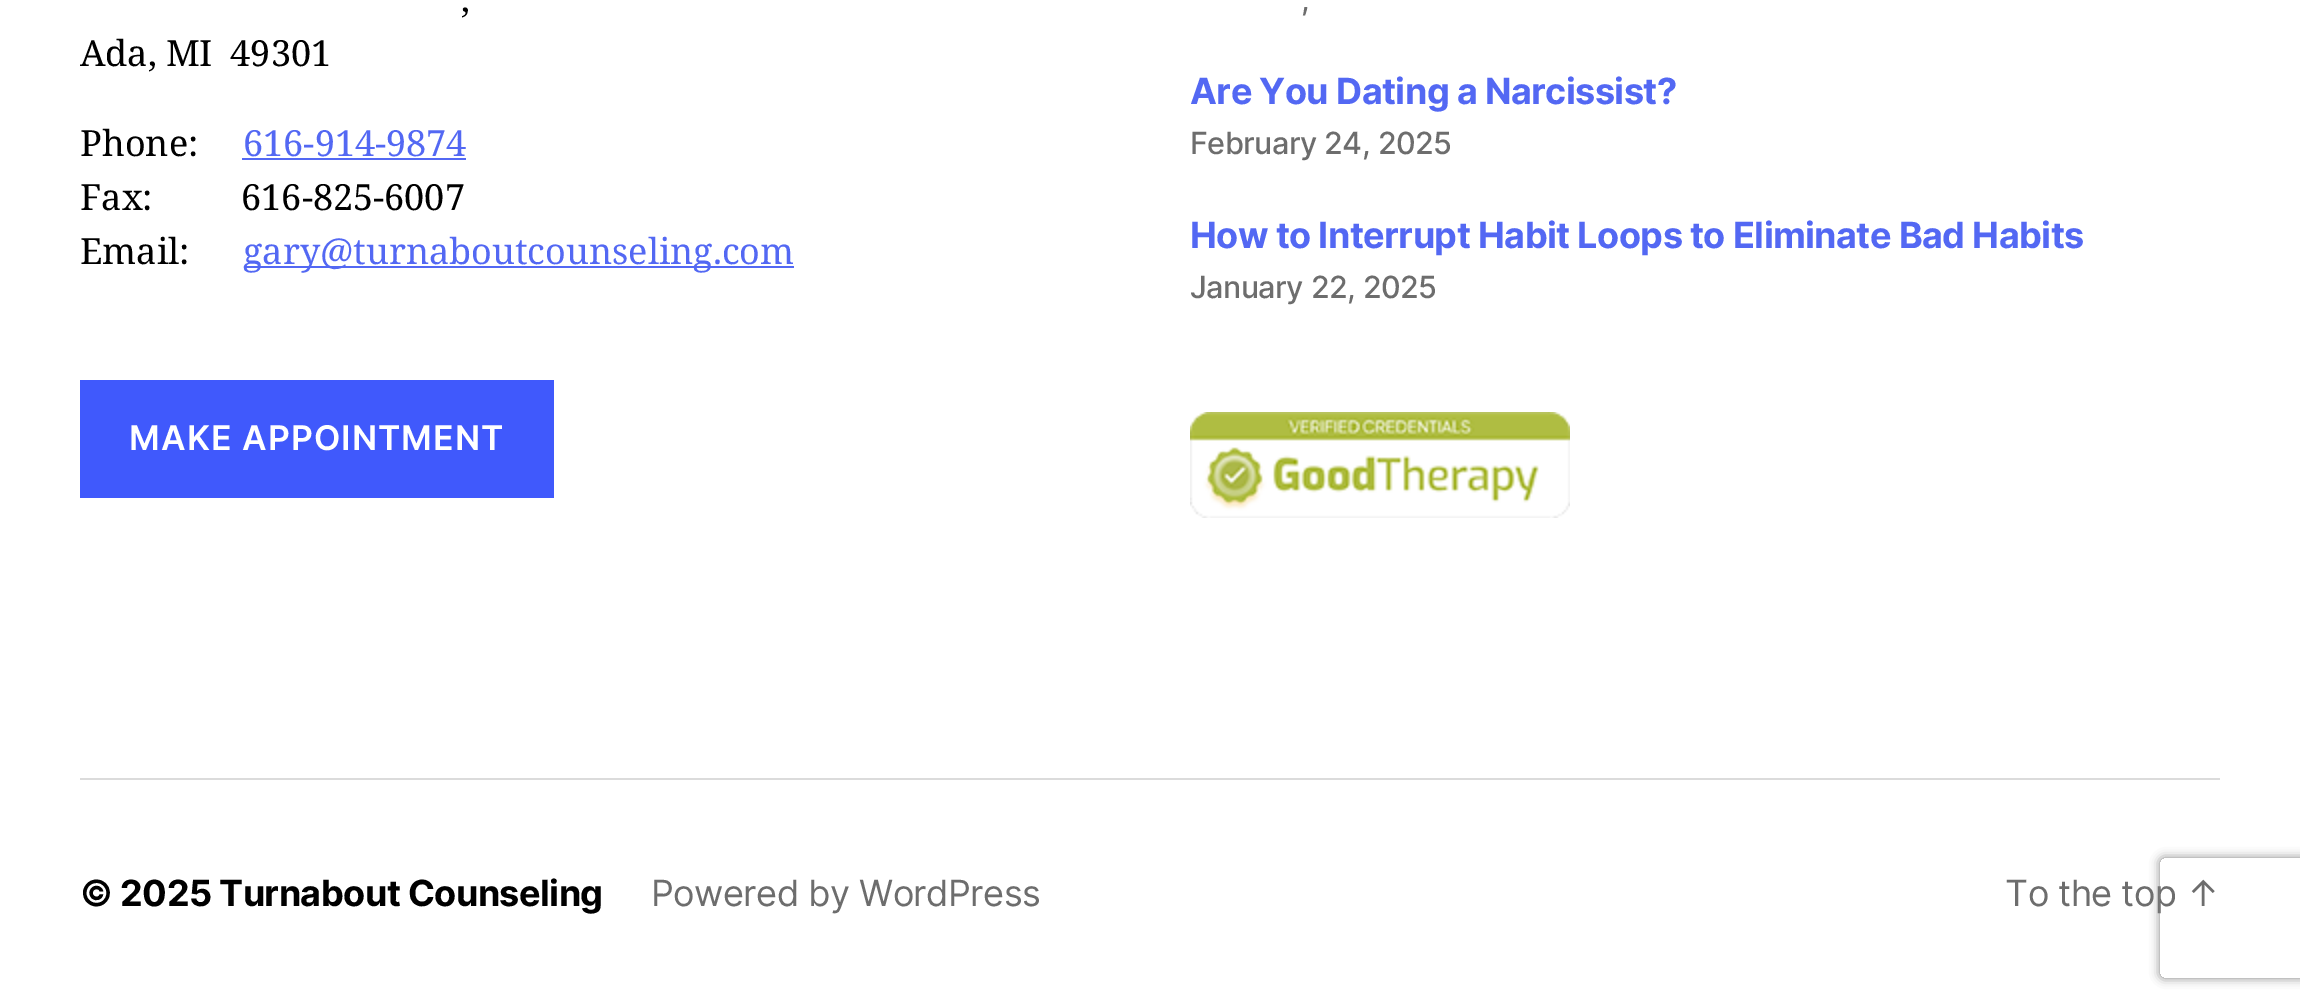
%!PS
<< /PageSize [2300 1005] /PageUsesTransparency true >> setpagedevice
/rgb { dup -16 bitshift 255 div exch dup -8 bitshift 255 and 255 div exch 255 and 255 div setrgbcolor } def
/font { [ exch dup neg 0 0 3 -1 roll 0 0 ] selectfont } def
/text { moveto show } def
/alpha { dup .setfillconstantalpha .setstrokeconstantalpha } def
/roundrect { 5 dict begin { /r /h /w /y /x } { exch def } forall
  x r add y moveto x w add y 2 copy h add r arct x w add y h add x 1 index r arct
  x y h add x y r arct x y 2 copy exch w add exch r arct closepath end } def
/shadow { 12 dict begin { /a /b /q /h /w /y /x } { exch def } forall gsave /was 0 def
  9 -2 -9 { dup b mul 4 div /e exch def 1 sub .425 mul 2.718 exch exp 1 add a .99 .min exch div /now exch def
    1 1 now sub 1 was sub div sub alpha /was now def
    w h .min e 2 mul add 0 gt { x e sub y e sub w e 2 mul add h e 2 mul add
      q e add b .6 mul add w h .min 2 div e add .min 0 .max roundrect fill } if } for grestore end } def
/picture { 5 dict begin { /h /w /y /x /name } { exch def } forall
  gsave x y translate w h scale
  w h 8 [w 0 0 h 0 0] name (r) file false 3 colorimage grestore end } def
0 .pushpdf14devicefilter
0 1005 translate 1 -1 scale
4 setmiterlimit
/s1 { /NotoSerif-Regular 36 font 16#000000 rgb } def
/s2 { /NotoSerif-Regular 36 font 16#5368F3 rgb } def
16#FFFFFF rgb
0 0 2300 1005 rectfill
16#DBDBDB rgb
80 778 2140 2 rectfill
/NotoSerif-Regular 36 font
16#000000 rgb
461 12 moveto -0.5 0 32 (,) widthshow
80 66 moveto -0.5 0 32 (Ada, MI  49301) widthshow
(Phone:) 80 156 text
s2
(616-914-9874) 243 156 text
242 158 224 2 rectfill
16#000000 rgb
80 210 moveto -0.5 0 32 (Fax:          616-825-6007) widthshow
(Email:) 80 264 text
16#5368F3 rgb
244 266 550 2 rectfill
(gary@turnaboutcounseling.com) 243 264 text
16#4059FC rgb
80 380 474 118 rectfill
/Inter-SemiBold 34 font
16#FFFFFF rgb
129 450 moveto 1.1 0 (MAKE APPOINTMENT) ashow
/Inter-Medium 30.5 font
16#6D6D6D rgb
1301 10 moveto -0.55 0 (,) ashow
/Inter-Bold 36 font
16#5368F3 rgb
1190 104 moveto -0.55 0 (Are You Dating a Narcissist?) ashow
/Inter-Medium 30.5 font
16#6D6D6D rgb
1190 154 moveto -0.55 0 (February 24, 2025) ashow
/Inter-Bold 36 font
16#5368F3 rgb
1190 248 moveto -0.55 0 (How to Interrupt Habit Loops to Eliminate Bad Habits) ashow
/Inter-Medium 30.5 font
16#6D6D6D rgb
1190 298 moveto -0.55 0 (January 22, 2025) ashow
(pic1.raw) 1190 412 380 106 picture
/Inter-Bold 36 font
16#000000 rgb
80 906 moveto -0.55 0 (© 2025 Turnabout Counseling) ashow
/Inter-Regular 36 font
16#6D6D6D rgb
651 906 moveto -0.55 0 (Powered by WordPress) ashow
2005 906 moveto -0.55 0 (To the top ↑) ashow
gsave
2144 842 moveto 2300 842 lineto 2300 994 lineto 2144 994 lineto closepath 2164 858 moveto 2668 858 lineto 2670 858 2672 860 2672 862 curveto 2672 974 lineto 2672 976 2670 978 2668 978 curveto 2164 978 lineto 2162 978 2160 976 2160 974 curveto 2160 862 lineto 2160 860 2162 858 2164 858 curveto closepath eoclip newpath
16#808080 rgb
2160 858 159 120 4 5 1 shadow
grestore
.poppdf14devicefilter showpage
